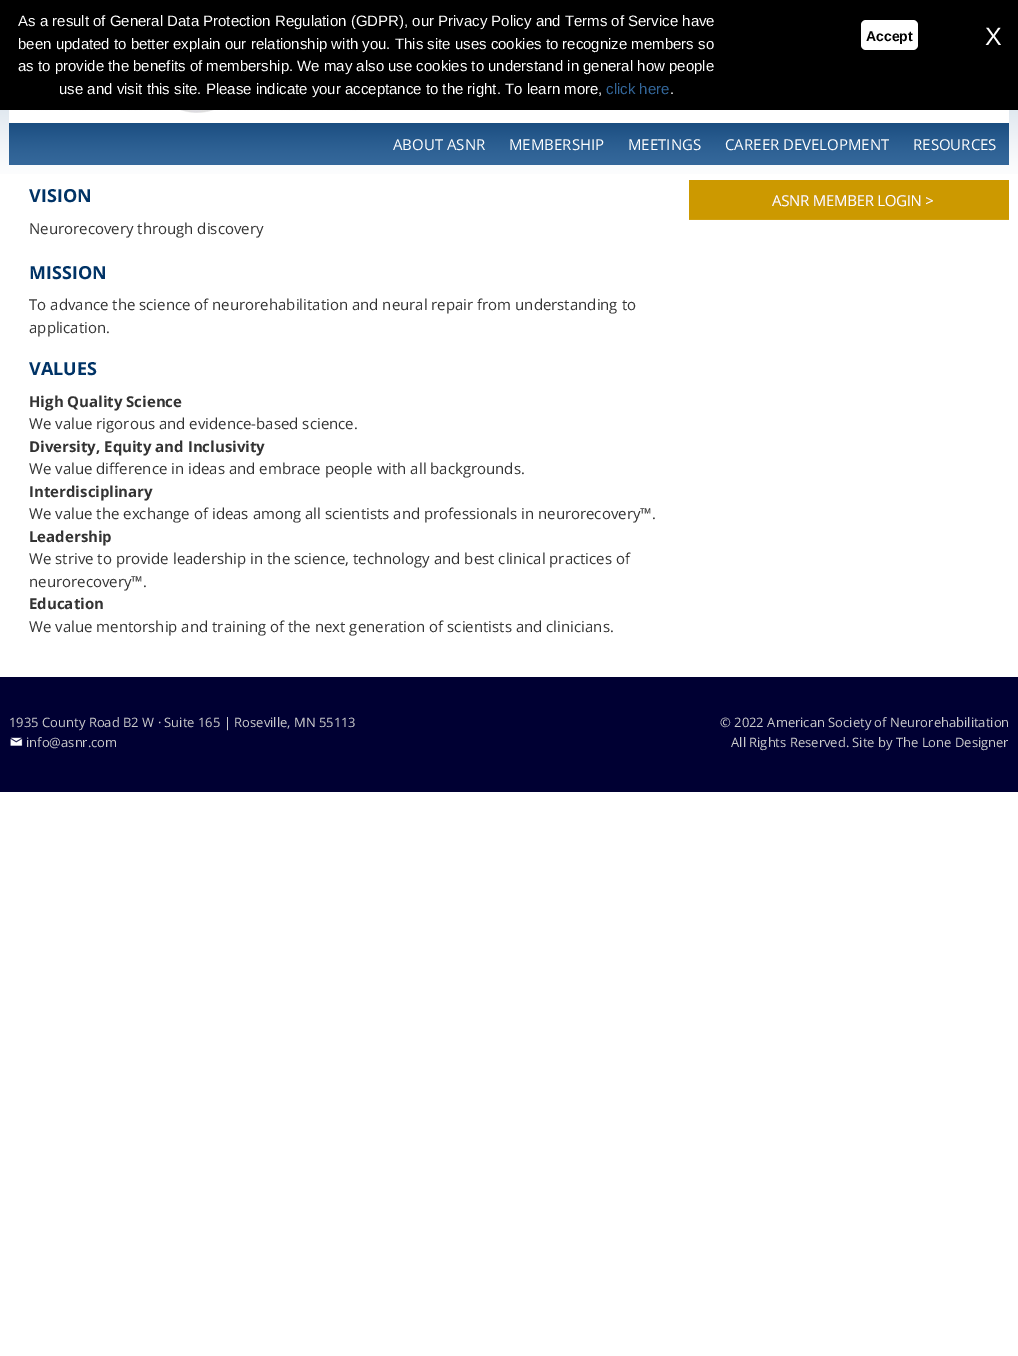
%!PS
<< /PageSize [1018 1356] >> setpagedevice
/rgb { dup -16 bitshift 255 div exch dup -8 bitshift 255 and 255 div exch 255 and 255 div setrgbcolor } def
/font { [ exch dup neg 0 0 3 -1 roll 0 0 ] selectfont } def
/text { moveto show } def
/roundrect { 5 dict begin { /r /h /w /y /x } { exch def } forall
  x r add y moveto x w add y 2 copy h add r arct x w add y h add x 1 index r arct
  x y h add x y r arct x y 2 copy exch w add exch r arct closepath end } def
/picture { 5 dict begin { /h /w /y /x /name } { exch def } forall
  gsave x y translate w h scale
  w h 8 [w 0 0 h 0 0] name (r) file false 3 colorimage grestore end } def
0 1356 translate 1 -1 scale
4 setmiterlimit
/s1 { /LiberationSans-Regular 15 font 16#FFFFFF rgb } def
/s2 { /LiberationSans-Regular 15 font 16#336699 rgb } def
/s3 { /LiberationSans-Bold 14 font 16#000000 rgb } def
/s4 { /LiberationSans-Regular 25 font 16#FFFFFF rgb } def
/s5 { /OpenSans-Regular 15 font 16#FFFFFF rgb } def
/s6 { /OpenSans-Bold 18 font 16#003366 rgb } def
/s7 { /OpenSans-Regular 15 font 16#333333 rgb } def
/s8 { /OpenSans-Bold 15 font 16#333333 rgb } def
/s9 { /OpenSans-Regular 13 font 16#CCCCCC rgb } def
16#FFFFFF rgb
0 0 1018 1356 rectfill
(pic1.raw) 0 110 1018 64 picture
16#000000 rgb
0 0 1018 110 rectfill
s1
(As a result of General Data Protection Regulation \(GDPR\), our Privacy Policy and Terms of Service have) 18 26 text
(been updated to better explain our relationship with you. This site uses cookies to recognize members so) 18 49 text
(as to provide the benefits of membership. We may also use cookies to understand in general how people) 18 71 text
(use and visit this site. Please indicate your acceptance to the right. To learn more,) 59 94 text
s2
(click here) 606 94 text
s1
(.) 670 94 text
861 20 57 30 5 roundrect fill
s3
(Accept) 866 41 text
s4
(X) 985 45 text
9 110 1000 13 rectfill
(pic2.raw) 9 123 1000 42 picture
(pic3.raw) 30 110 334 3 picture
s5
(ABOUT ASNR) 393 150 text
(MEMBERSHIP) 509 150 text
(MEETINGS) 628 150 text
(CAREER DEVELOPMENT) 725 150 text
(RESOURCES) 913 150 text
s6
(VISION) 29 202 text
s7
(Neurorecovery through discovery) 29 234 text
s6
(MISSION) 29 279 text
s7
(To advance the science of neurorehabilitation and neural repair from understanding to) 29 310 text
(application.) 29 333 text
s6
(VALUES) 29 375 text
s8
(High Quality Science) 29 407 text
s7
(We value rigorous and evidence-based science.) 29 429 text
s8
(Diversity, Equity and Inclusivity) 29 452 text
s7
(We value difference in ideas and embrace people with all backgrounds.) 29 474 text
s8
(Interdisciplinary) 29 497 text
s7
(We value the exchange of ideas among all scientists and professionals in neurorecovery™.) 29 519 text
s8
(Leadership) 29 542 text
s7
(We strive to provide leadership in the science, technology and best clinical practices of) 29 564 text
(neurorecovery™.) 29 587 text
s8
(Education) 29 609 text
s7
(We value mentorship and training of the next generation of scientists and clinicians.) 29 632 text
(pic4.raw) 689 180 320 40 picture
16#000033 rgb
0 677 1018 115 rectfill
s9
(1935 County Road B2 W · Suite 165 | Roseville, MN 55113) 9 727 text
(pic5.raw) 10 737 13 9 picture
(info@asnr.com) 26 747 text
(© 2022 American Society of Neurorehabilitation) 720 727 text
(All Rights Reserved. Site by The Lone Designer) 731 747 text
showpage
